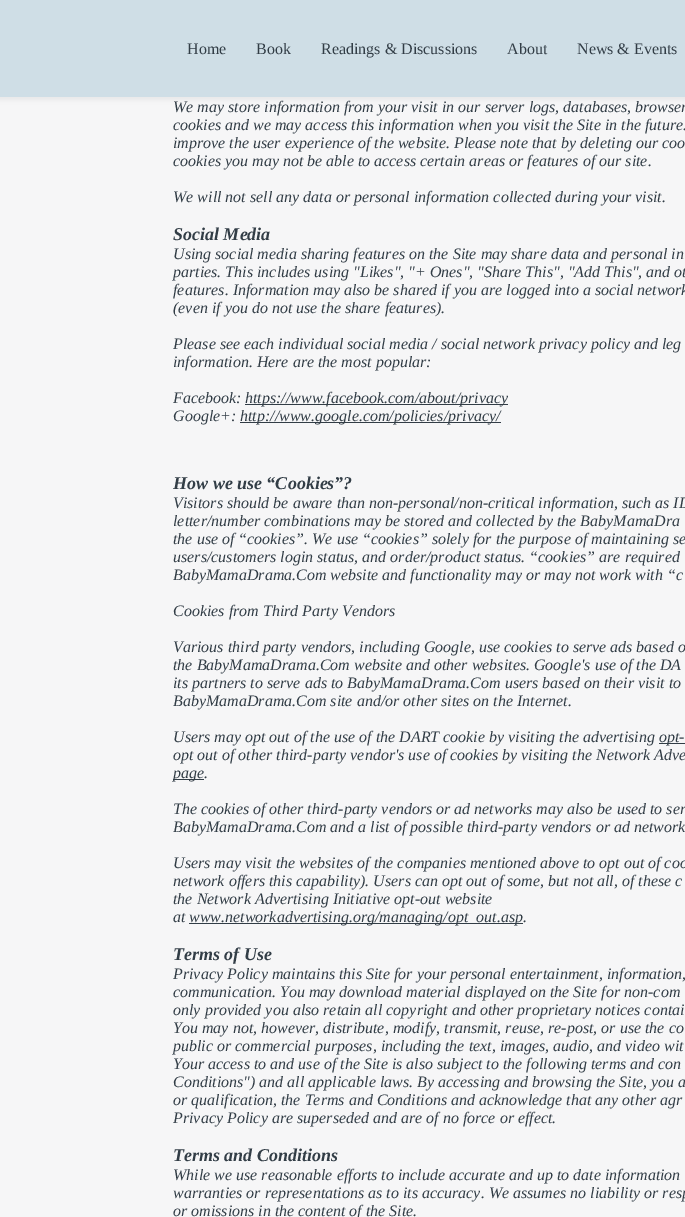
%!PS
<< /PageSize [685 1217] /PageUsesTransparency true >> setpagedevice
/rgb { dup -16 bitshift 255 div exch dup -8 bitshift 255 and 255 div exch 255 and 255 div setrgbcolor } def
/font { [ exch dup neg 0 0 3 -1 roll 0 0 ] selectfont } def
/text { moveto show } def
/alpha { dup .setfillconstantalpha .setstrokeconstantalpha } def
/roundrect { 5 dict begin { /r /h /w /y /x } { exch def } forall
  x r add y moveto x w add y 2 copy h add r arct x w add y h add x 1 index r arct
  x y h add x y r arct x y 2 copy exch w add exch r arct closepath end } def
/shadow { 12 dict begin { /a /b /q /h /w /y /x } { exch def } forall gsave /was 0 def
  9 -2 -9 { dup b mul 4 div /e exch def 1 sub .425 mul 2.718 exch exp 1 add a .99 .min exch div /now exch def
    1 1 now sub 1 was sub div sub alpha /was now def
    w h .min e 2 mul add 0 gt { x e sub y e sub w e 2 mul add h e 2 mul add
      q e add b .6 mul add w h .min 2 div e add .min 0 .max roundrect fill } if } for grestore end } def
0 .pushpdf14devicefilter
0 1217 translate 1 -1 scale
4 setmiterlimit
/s1 { /LiberationSerif-Regular 16 font 16#323D46 rgb } def
/s2 { /LiberationSerif-Italic 16 font 16#323D46 rgb } def
/s3 { /LiberationSerif-BoldItalic 18 font 16#323D46 rgb } def
16#F6F6F7 rgb
0 0 685 1217 rectfill
16#000000 rgb
-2 -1 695 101 0 2.5 0.05 shadow
16#CFDEE6 rgb
0 0 685 97 rectfill
s1
(Home) 187 54 text
(Book) 256 54 text
(Readings & Discussions) 321 54 text
(About) 507 54 text
(News & Events) 577 54 text
s2
(We may store information from your visit in our server logs, databases, browser) 173 112 text
(cookies and we may access this information when you visit the Site in the future.) 173 130 text
(improve the user experience of the website. Please note that by deleting our coo) 173 148 text
(cookies you may not be able to access certain areas or features of our site.) 173 166 text
(We will not sell any data or personal information collected during your visit.) 173 202 text
s3
(Social Media) 173 240 text
s2
(Using social media sharing features on the Site may share data and personal in) 173 259 text
(parties. This includes using "Likes", "+ Ones", "Share This", "Add This", and ot) 173 277 text
(features. Information may also be shared if you are logged into a social network) 173 295 text
(\(even if you do not use the share features\).) 173 313 text
(Please see each individual social media / social network privacy policy and leg) 173 349 text
(information. Here are the most popular:) 173 367 text
(Facebook:) 173 403 text
245 404 263 1 rectfill
(https://www.facebook.com/about/privacy) 245 403 text
(Google+:) 173 421 text
240 422 261 1 rectfill
(http://www.google.com/policies/privacy/) 240 421 text
s3
(How we use “Cookies”?) 173 489 text
s2
(Visitors should be aware than non-personal/non-critical information, such as ID) 173 508 text
(letter/number combinations may be stored and collected by the BabyMamaDra) 173 526 text
(the use of “cookies”. We use “cookies” solely for the purpose of maintaining se) 173 544 text
(users/customers login status, and order/product status. “cookies” are required) 173 562 text
(BabyMamaDrama.Com website and functionality may or may not work with “c) 173 580 text
(Cookies from Third Party Vendors) 173 616 text
(Various third party vendors, including Google, use cookies to serve ads based o) 173 652 text
(the BabyMamaDrama.Com website and other websites. Google's use of the DA) 173 670 text
(its partners to serve ads to BabyMamaDrama.Com users based on their visit to) 173 688 text
(BabyMamaDrama.Com site and/or other sites on the Internet.) 173 706 text
(Users may opt out of the use of the DART cookie by visiting the advertising) 173 742 text
659 743 26 1 rectfill
(opt-) 659 742 text
(opt out of other third-party vendor's use of cookies by visiting the Network Adve) 173 760 text
173 779 31 1 rectfill
(page.) 173 778 text
(The cookies of other third-party vendors or ad networks may also be used to ser) 173 814 text
(BabyMamaDrama.Com and a list of possible third-party vendors or ad network) 173 832 text
(Users may visit the websites of the companies mentioned above to opt out of coo) 173 868 text
(network offers this capability\). Users can opt out of some, but not all, of these c) 173 886 text
(the Network Advertising Initiative opt-out website) 173 904 text
(at) 173 922 text
189 923 334 1 rectfill
(www.networkadvertising.org/managing/opt_out.asp.) 189 922 text
s3
(Terms of Use) 173 960 text
s2
(Privacy Policy maintains this Site for your personal entertainment, information,) 173 979 text
(communication. You may download material displayed on the Site for non-com) 173 997 text
(only provided you also retain all copyright and other proprietary notices contai) 173 1015 text
(You may not, however, distribute, modify, transmit, reuse, re-post, or use the co) 173 1033 text
(public or commercial purposes, including the text, images, audio, and video wit) 173 1051 text
(Your access to and use of the Site is also subject to the following terms and con) 173 1069 text
(Conditions"\) and all applicable laws. By accessing and browsing the Site, you a) 173 1087 text
(or qualification, the Terms and Conditions and acknowledge that any other agr) 173 1105 text
(Privacy Policy are superseded and are of no force or effect.) 173 1123 text
s3
(Terms and Conditions) 173 1161 text
s2
(While we use reasonable efforts to include accurate and up to date information) 173 1180 text
(warranties or representations as to its accuracy. We assumes no liability or resp) 173 1198 text
(or omissions in the content of the Site.) 173 1216 text
.poppdf14devicefilter showpage
